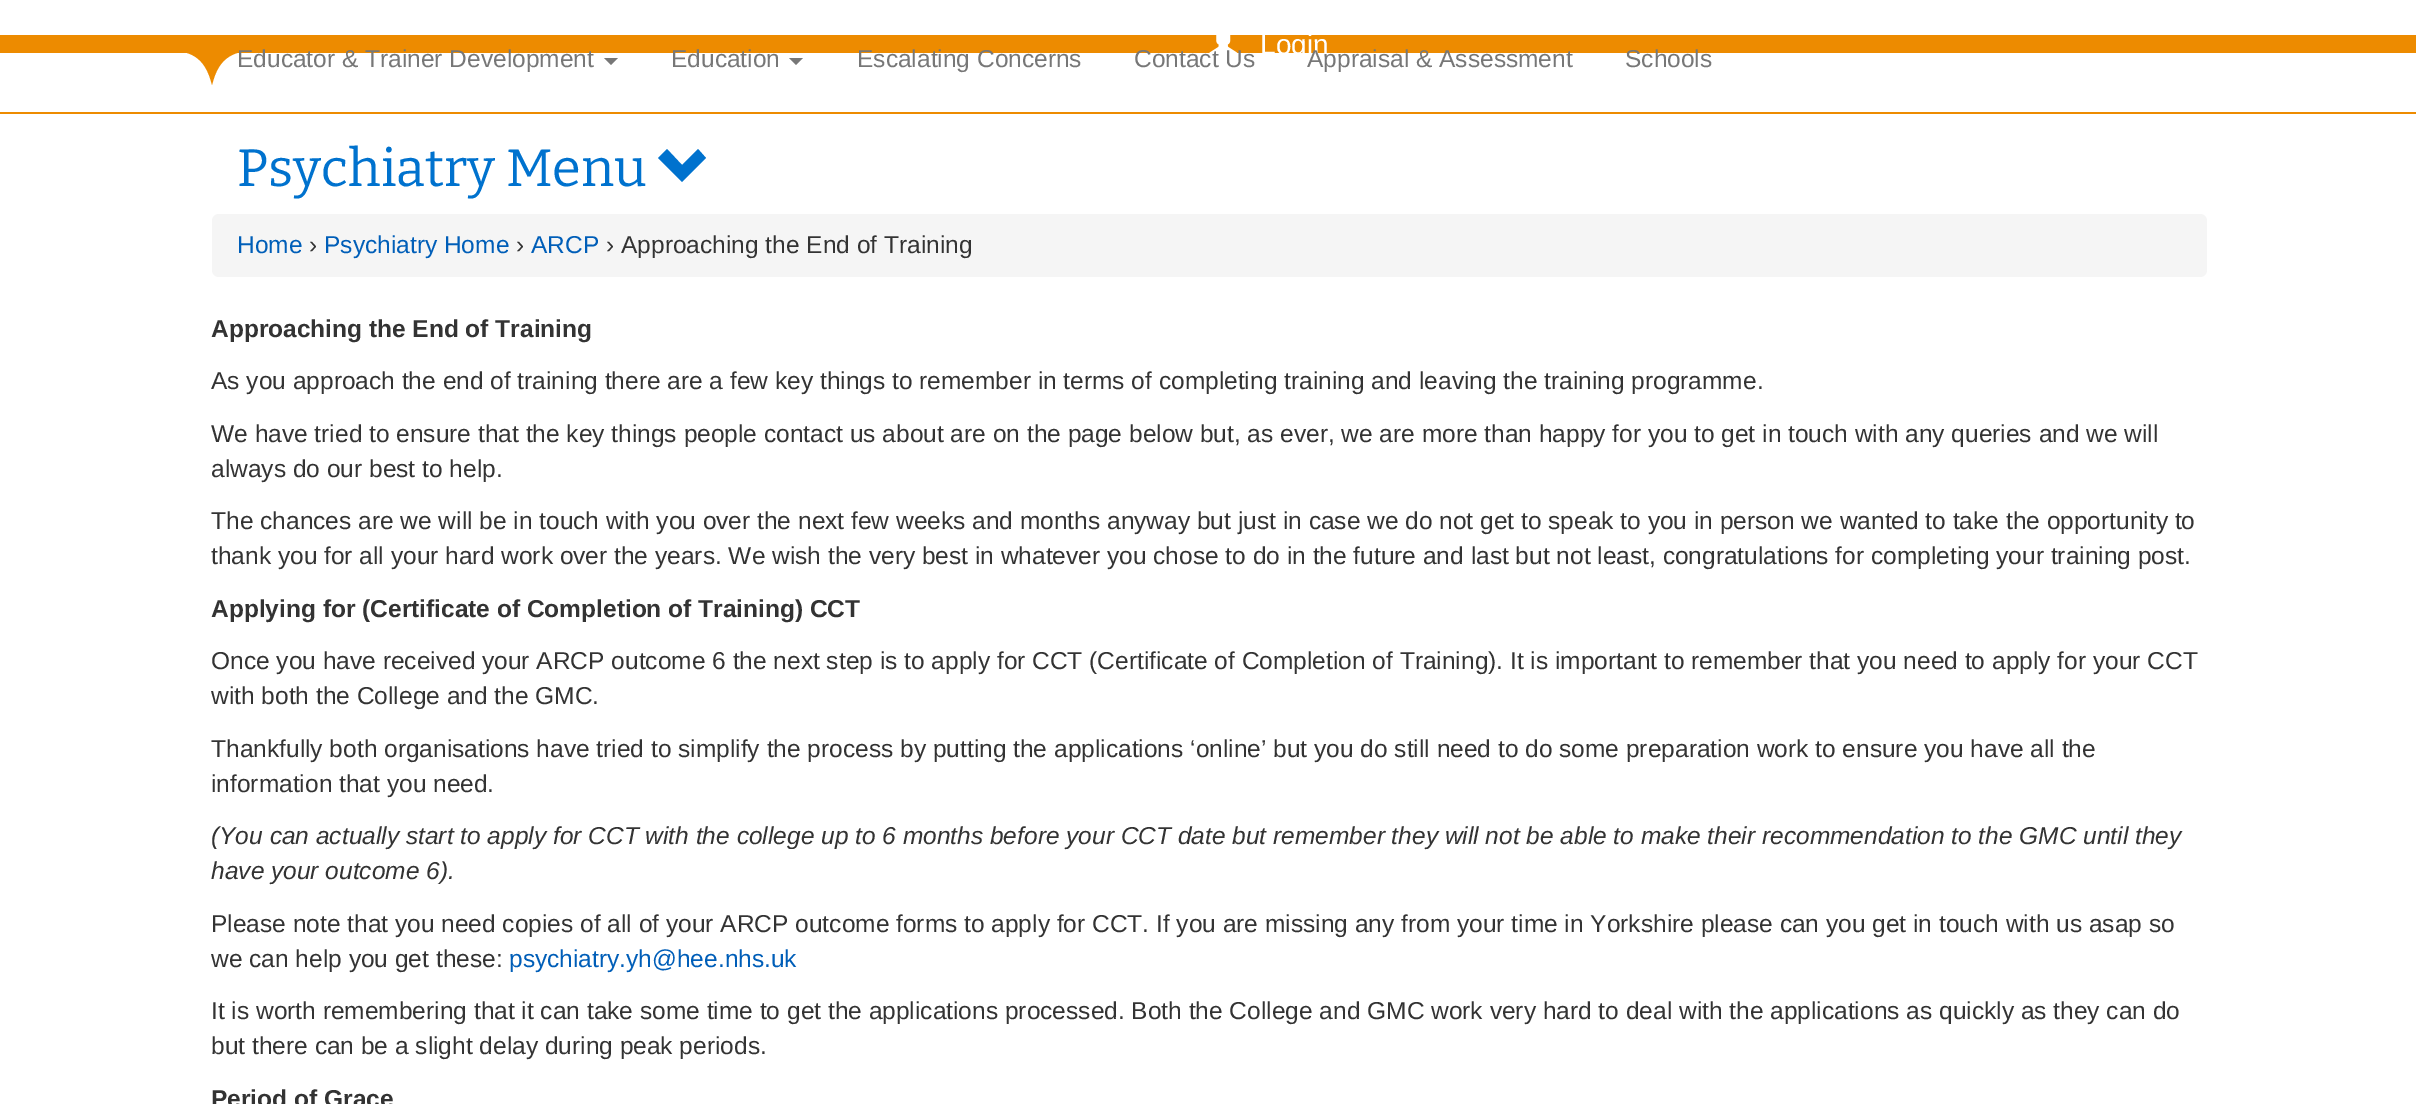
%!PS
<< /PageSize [2416 1104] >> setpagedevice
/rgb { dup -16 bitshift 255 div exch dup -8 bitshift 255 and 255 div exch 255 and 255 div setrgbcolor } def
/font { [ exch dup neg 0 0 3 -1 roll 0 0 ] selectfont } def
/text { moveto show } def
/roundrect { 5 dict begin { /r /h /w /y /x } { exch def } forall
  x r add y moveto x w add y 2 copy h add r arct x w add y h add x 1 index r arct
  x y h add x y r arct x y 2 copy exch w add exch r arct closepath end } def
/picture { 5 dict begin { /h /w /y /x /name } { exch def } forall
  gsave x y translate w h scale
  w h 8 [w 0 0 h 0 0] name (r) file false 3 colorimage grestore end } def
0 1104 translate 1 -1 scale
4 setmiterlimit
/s1 { /LiberationSans-Regular 28 font 16#FFFFFF rgb } def
/s2 { /LiberationSans-Regular 24.5 font 16#777777 rgb } def
/s3 { /Bitter-Thin 52.5 font 16#0072CE rgb } def
/s4 { /LiberationSans-Regular 24.5 font 16#005EB8 rgb } def
/s5 { /LiberationSans-Regular 24.5 font 16#333333 rgb } def
/s6 { /LiberationSans-Bold 24.5 font 16#333333 rgb } def
/s7 { /LiberationSans-Italic 24.5 font 16#333333 rgb } def
16#FFFFFF rgb
0 0 2416 1104 rectfill
16#ED8B00 rgb
163 50 moveto 190 50 205 56 212 85 curveto 219 56 234 50 262 50 curveto closepath fill
0 35 2416 18 rectfill
(pic1.raw) 1209 35 29 18 picture
s1
(Login) 1260 54 text
16#ED8B00 rgb
0 112 2416 2 rectfill
s2
(Educator & Trainer Development) 237 67 text
604 58 moveto 618 58 lineto 611 65 lineto closepath fill
(Education) 671 67 text
789 58 moveto 803 58 lineto 796 65 lineto closepath fill
(Escalating Concerns) 857 67 text
(Contact Us) 1134 67 text
(Appraisal & Assessment) 1307 67 text
(Schools) 1625 67 text
s3
(Psychiatry Menu) 237 186 text
706 158 moveto 682 182 lineto 658 158 lineto 667 149 lineto 682 165 lineto 698 149 lineto closepath fill
16#F5F5F5 rgb
212 214 1995 63 7 roundrect fill
s4
(Home) 237 253 text
s5
(›) 309 253 text
s4
(Psychiatry Home) 324 253 text
s5
(›) 516 253 text
s4
(ARCP) 531 253 text
s5
(› Approaching the End of Training) 606 253 text
s6
(Approaching the End of Training) 211 337 text
s5
(As you approach the end of training there are a few key things to remember in terms of completing training and leaving the training programme.) 211 389 text
(We have tried to ensure that the key things people contact us about are on the page below but, as ever, we are more than happy for you to get in touch with any queries and we will) 211 442 text
(always do our best to help.) 211 477 text
(The chances are we will be in touch with you over the next few weeks and months anyway but just in case we do not get to speak to you in person we wanted to take the opportunity to) 211 529 text
(thank you for all your hard work over the years. We wish the very best in whatever you chose to do in the future and last but not least, congratulations for completing your training post.) 211 564 text
s6
(Applying for \(Certificate of Completion of Training\) CCT) 211 617 text
s5
(Once you have received your ARCP outcome 6 the next step is to apply for CCT \(Certificate of Completion of Training\). It is important to remember that you need to apply for your CCT) 211 669 text
(with both the College and the GMC.) 211 704 text
(Thankfully both organisations have tried to simplify the process by putting the applications ‘online’ but you do still need to do some preparation work to ensure you have all the) 211 757 text
(information that you need.) 211 792 text
s7
(\(You can actually start to apply for CCT with the college up to 6 months before your CCT date but remember they will not be able to make their recommendation to the GMC until they) 211 844 text
(have your outcome 6\).) 211 879 text
s5
(Please note that you need copies of all of your ARCP outcome forms to apply for CCT. If you are missing any from your time in Yorkshire please can you get in touch with us asap so) 211 932 text
(we can help you get these:) 211 967 text
s4
(psychiatry.yh@hee.nhs.uk) 509 967 text
s5
(It is worth remembering that it can take some time to get the applications processed. Both the College and GMC work very hard to deal with the applications as quickly as they can do) 211 1019 text
(but there can be a slight delay during peak periods.) 211 1054 text
s6
(Period of Grace) 211 1107 text
showpage
